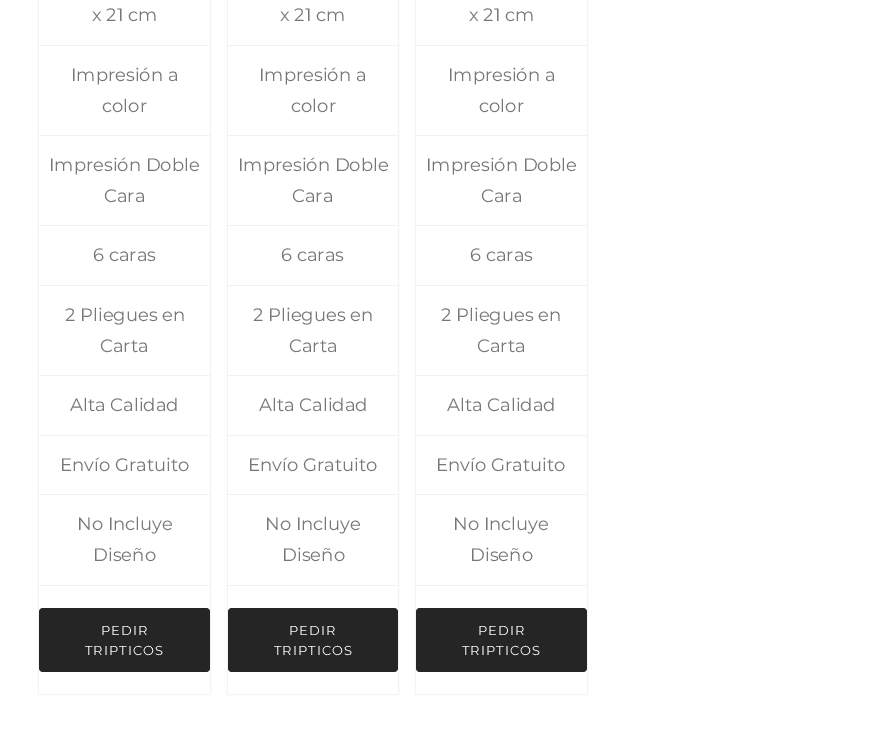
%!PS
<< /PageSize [882 729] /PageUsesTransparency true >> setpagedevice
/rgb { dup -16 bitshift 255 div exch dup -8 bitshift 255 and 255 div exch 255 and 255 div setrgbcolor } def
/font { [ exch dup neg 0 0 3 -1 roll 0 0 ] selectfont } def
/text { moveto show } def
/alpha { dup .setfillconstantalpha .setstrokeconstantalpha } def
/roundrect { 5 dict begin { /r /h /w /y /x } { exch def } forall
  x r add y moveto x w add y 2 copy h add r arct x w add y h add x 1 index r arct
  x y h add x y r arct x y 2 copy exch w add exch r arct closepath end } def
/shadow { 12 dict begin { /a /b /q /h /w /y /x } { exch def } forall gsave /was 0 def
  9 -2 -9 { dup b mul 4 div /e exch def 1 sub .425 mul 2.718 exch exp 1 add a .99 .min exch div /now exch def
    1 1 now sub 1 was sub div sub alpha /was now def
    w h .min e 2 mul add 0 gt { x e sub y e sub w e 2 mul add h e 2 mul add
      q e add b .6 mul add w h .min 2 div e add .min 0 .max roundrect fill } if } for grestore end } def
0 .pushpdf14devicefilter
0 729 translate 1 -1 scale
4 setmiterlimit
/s1 { /Montserrat-Regular 18 font 16#777777 rgb } def
16#FFFFFF rgb
0 0 882 729 rectfill
gsave
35 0 moveto 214 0 lineto 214 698 lineto 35 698 lineto closepath 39 -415 moveto 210 -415 lineto 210 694 lineto 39 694 lineto closepath eoclip newpath
16#000000 rgb
39 -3 171 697 0 1 0.15 shadow
grestore
16#F2F2F2 rgb
39 45 171 1 rectfill
s1
(x 21 cm) 92 21 text
16#F2F2F2 rgb
39 135 171 1 rectfill
s1
(Impresión a) 71 81 text
(color) 102 112 text
16#F2F2F2 rgb
39 225 171 1 rectfill
s1
(Impresión Doble) 49 171 text
(Cara) 104 202 text
16#F2F2F2 rgb
39 285 171 1 rectfill
s1
(6 caras) 93 261 text
16#F2F2F2 rgb
39 375 171 1 rectfill
s1
(2 Pliegues en) 65 321 text
(Carta) 100 352 text
16#F2F2F2 rgb
39 435 171 1 rectfill
s1
(Alta Calidad) 70 411 text
16#F2F2F2 rgb
39 494 171 1 rectfill
s1
(Envío Gratuito) 60 471 text
16#F2F2F2 rgb
39 585 171 1 rectfill
s1
(No Incluye) 77 530 text
(Diseño) 93 561 text
16#252525 rgb
39 608 171 64 4 roundrect fill
/Montserrat-Regular 13 font
16#FFFFFF rgb
101 635 moveto 1 0 (PEDIR) ashow
85 655 moveto 1 0 (TRIPTICOS) ashow
gsave
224 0 moveto 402 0 lineto 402 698 lineto 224 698 lineto closepath 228 -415 moveto 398 -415 lineto 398 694 lineto 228 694 lineto closepath eoclip newpath
16#000000 rgb
228 -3 170 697 0 1 0.15 shadow
grestore
16#F2F2F2 rgb
228 45 170 1 rectfill
s1
(x 21 cm) 280 21 text
16#F2F2F2 rgb
228 135 170 1 rectfill
s1
(Impresión a) 259 81 text
(color) 291 112 text
16#F2F2F2 rgb
228 225 170 1 rectfill
s1
(Impresión Doble) 238 171 text
(Cara) 292 202 text
16#F2F2F2 rgb
228 285 170 1 rectfill
s1
(6 caras) 281 261 text
16#F2F2F2 rgb
228 375 170 1 rectfill
s1
(2 Pliegues en) 253 321 text
(Carta) 289 352 text
16#F2F2F2 rgb
228 435 170 1 rectfill
s1
(Alta Calidad) 259 411 text
16#F2F2F2 rgb
228 494 170 1 rectfill
s1
(Envío Gratuito) 248 471 text
16#F2F2F2 rgb
228 585 170 1 rectfill
s1
(No Incluye) 265 530 text
(Diseño) 282 561 text
16#252525 rgb
228 608 170 64 4 roundrect fill
/Montserrat-Regular 13 font
16#FFFFFF rgb
289 635 moveto 1 0 (PEDIR) ashow
274 655 moveto 1 0 (TRIPTICOS) ashow
gsave
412 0 moveto 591 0 lineto 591 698 lineto 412 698 lineto closepath 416 -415 moveto 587 -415 lineto 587 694 lineto 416 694 lineto closepath eoclip newpath
16#000000 rgb
416 -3 171 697 0 1 0.15 shadow
grestore
16#F2F2F2 rgb
416 45 171 1 rectfill
s1
(x 21 cm) 469 21 text
16#F2F2F2 rgb
416 135 171 1 rectfill
s1
(Impresión a) 448 81 text
(color) 479 112 text
16#F2F2F2 rgb
416 225 171 1 rectfill
s1
(Impresión Doble) 426 171 text
(Cara) 481 202 text
16#F2F2F2 rgb
416 285 171 1 rectfill
s1
(6 caras) 470 261 text
16#F2F2F2 rgb
416 375 171 1 rectfill
s1
(2 Pliegues en) 441 321 text
(Carta) 477 352 text
16#F2F2F2 rgb
416 435 171 1 rectfill
s1
(Alta Calidad) 447 411 text
16#F2F2F2 rgb
416 494 171 1 rectfill
s1
(Envío Gratuito) 436 471 text
16#F2F2F2 rgb
416 585 171 1 rectfill
s1
(No Incluye) 453 530 text
(Diseño) 470 561 text
16#252525 rgb
416 608 171 64 4 roundrect fill
/Montserrat-Regular 13 font
16#FFFFFF rgb
478 635 moveto 1 0 (PEDIR) ashow
462 655 moveto 1 0 (TRIPTICOS) ashow
.poppdf14devicefilter showpage
